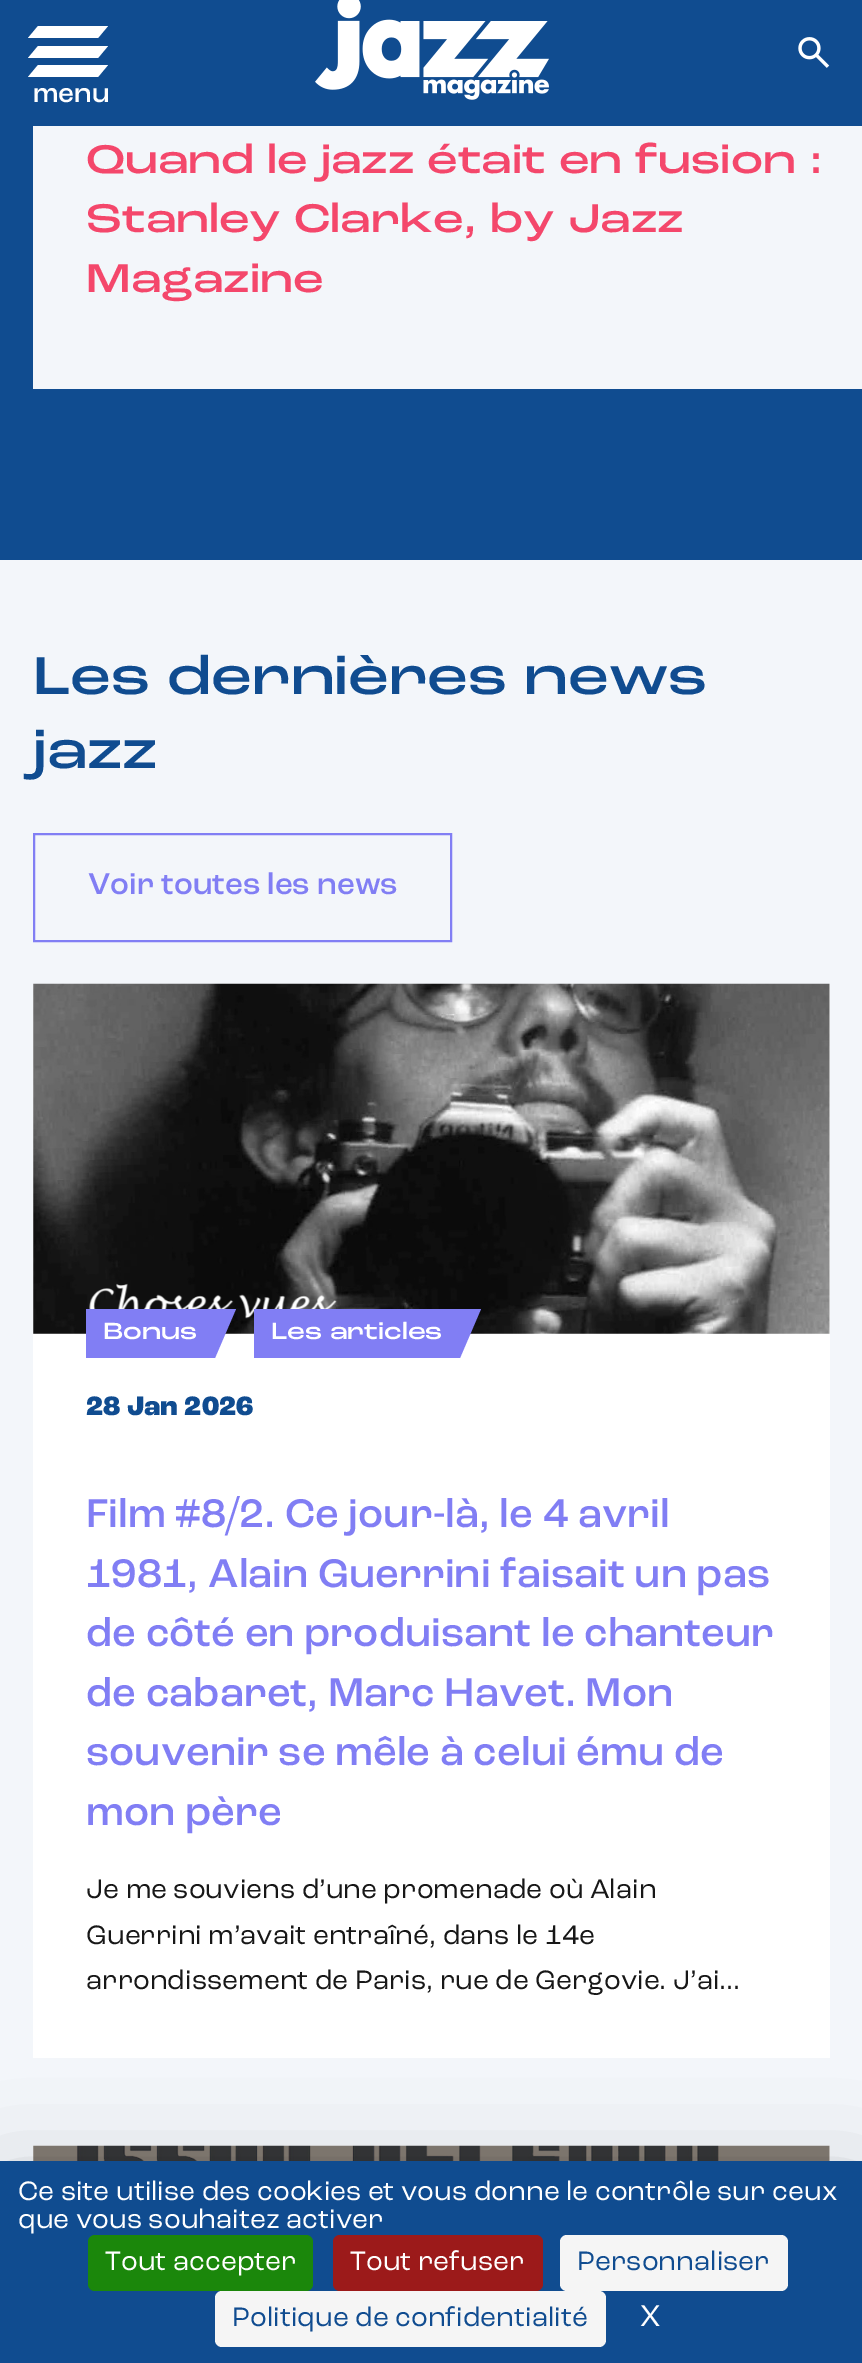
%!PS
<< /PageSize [862 2363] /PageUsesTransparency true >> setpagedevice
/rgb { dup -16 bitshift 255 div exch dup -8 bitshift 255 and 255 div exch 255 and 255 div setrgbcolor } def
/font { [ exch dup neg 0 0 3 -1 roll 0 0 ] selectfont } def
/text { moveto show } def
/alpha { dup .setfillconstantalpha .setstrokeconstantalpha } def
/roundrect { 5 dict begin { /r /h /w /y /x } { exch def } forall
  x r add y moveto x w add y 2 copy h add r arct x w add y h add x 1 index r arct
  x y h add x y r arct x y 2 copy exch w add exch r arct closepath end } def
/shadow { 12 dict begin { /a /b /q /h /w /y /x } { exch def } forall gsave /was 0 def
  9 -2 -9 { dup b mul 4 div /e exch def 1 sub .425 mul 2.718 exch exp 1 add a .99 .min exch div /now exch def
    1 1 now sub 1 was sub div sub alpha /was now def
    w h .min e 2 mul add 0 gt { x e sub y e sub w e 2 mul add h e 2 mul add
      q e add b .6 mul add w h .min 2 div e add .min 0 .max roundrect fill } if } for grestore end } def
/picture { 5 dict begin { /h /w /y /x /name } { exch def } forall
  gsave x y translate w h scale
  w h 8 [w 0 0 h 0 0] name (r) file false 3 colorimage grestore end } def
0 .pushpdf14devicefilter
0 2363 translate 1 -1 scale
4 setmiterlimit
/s1 { /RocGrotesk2-Medium 28 font 16#FFFFFF rgb } def
/s2 { /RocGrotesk-Medium 42 font 16#F4476B rgb } def
/s3 { /RocGrotesk-Medium 56 font 16#104C90 rgb } def
/s4 { /RocGrotesk2-Medium 31.5 font 16#817EF4 rgb } def
/s5 { /RocGrotesk-Medium 24.5 font 16#FFFFFF rgb } def
/s6 { /RocGrotesk-ExtraBold 28 font 16#104C90 rgb } def
/s7 { /RocGrotesk2-Medium 42 font 16#817EF4 rgb } def
/s8 { /RocGrotesk-Regular 28 font 16#171717 rgb } def
/s9 { /RocGrotesk-Regular 28 font 16#FFFFFF rgb } def
/s10 { /RocGrotesk-Regular 28 font 16#104C90 rgb } def
/s11 { /RocGrotesk-Regular 31.5 font 16#FFFFFF rgb } def
16#104C90 rgb
0 0 862 2363 rectfill
(pic1.raw) 315 0 234 100 picture
(pic2.raw) 798 37 32 31 picture
16#FFFFFF rgb
38 26 moveto 108 26 lineto 98 38 lineto 28 38 lineto closepath fill
38 46 moveto 108 46 lineto 98 58 lineto 28 58 lineto closepath fill
38 65 moveto 108 65 lineto 98 77 lineto 28 77 lineto closepath fill
s1
(menu) 33 102 text
16#F3F6FA rgb
33 126 829 263 rectfill
s2
(Quand le jazz était en fusion :) 86 173 text
(Stanley Clarke, by Jazz) 86 232 text
(Magazine) 86 292 text
16#F3F6FA rgb
0 560 862 1601 rectfill
s3
(Les dernières news) 33 694 text
(jazz) 33 768 text
16#817EF4 rgb
2 setlinewidth
34 834 417 107 rectstroke
s4
(Voir toutes les news) 88 894 text
16#FFFFFF rgb
33 984 797 1074 rectfill
(pic3.raw) 33 983 797 351 picture
16#817EF4 rgb
86 1309 129 49 rectfill
s5
(Bonus) 103 1339 text
16#817EF4 rgb
215 1309 moveto 236 1309 lineto 215 1358 lineto closepath fill
254 1309 206 49 rectfill
s5
(Les articles) 271 1339 text
16#817EF4 rgb
460 1309 moveto 481 1309 lineto 460 1358 lineto closepath fill
s6
(28 Jan 2026) 86 1415 text
s7
(Film #8/2. Ce jour-là, le 4 avril) 86 1527 text
(1981, Alain Guerrini faisait un pas) 86 1587 text
(de côté en produisant le chanteur) 86 1646 text
(de cabaret, Marc Havet. Mon) 86 1706 text
(souvenir se mêle à celui ému de) 86 1765 text
(mon père) 86 1825 text
s8
(Je me souviens d’une promenade où Alain) 86 1898 text
(Guerrini m’avait entraîné, dans le 14e) 86 1944 text
(arrondissement de Paris, rue de Gergovie. J’ai...) 86 1989 text
16#FFFFFF rgb
33 2146 797 15 rectfill
(pic4.raw) 33 2145 797 16 picture
16#000000 rgb
0 2196 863 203 0 52.5 0.25 shadow
16#104C90 rgb
0 2161 862 202 rectfill
s9
(Ce site utilise des cookies et vous donne le contrôle sur ceux) 18 2200 text
(que vous souhaitez activer) 18 2228 text
16#1B870B rgb
88 2235 225 56 7 roundrect fill
s9
(Tout accepter) 105 2270 text
16#9C1A1A rgb
333 2235 210 56 7 roundrect fill
s9
(Tout refuser) 350 2270 text
16#F5F5F5 rgb
560 2235 228 56 7 roundrect fill
s10
(Personnaliser) 577 2270 text
16#F5F5F5 rgb
215 2291 391 56 7 roundrect fill
s10
(Politique de confidentialité) 232 2326 text
s11
(X) 640 2326 text
.poppdf14devicefilter showpage
